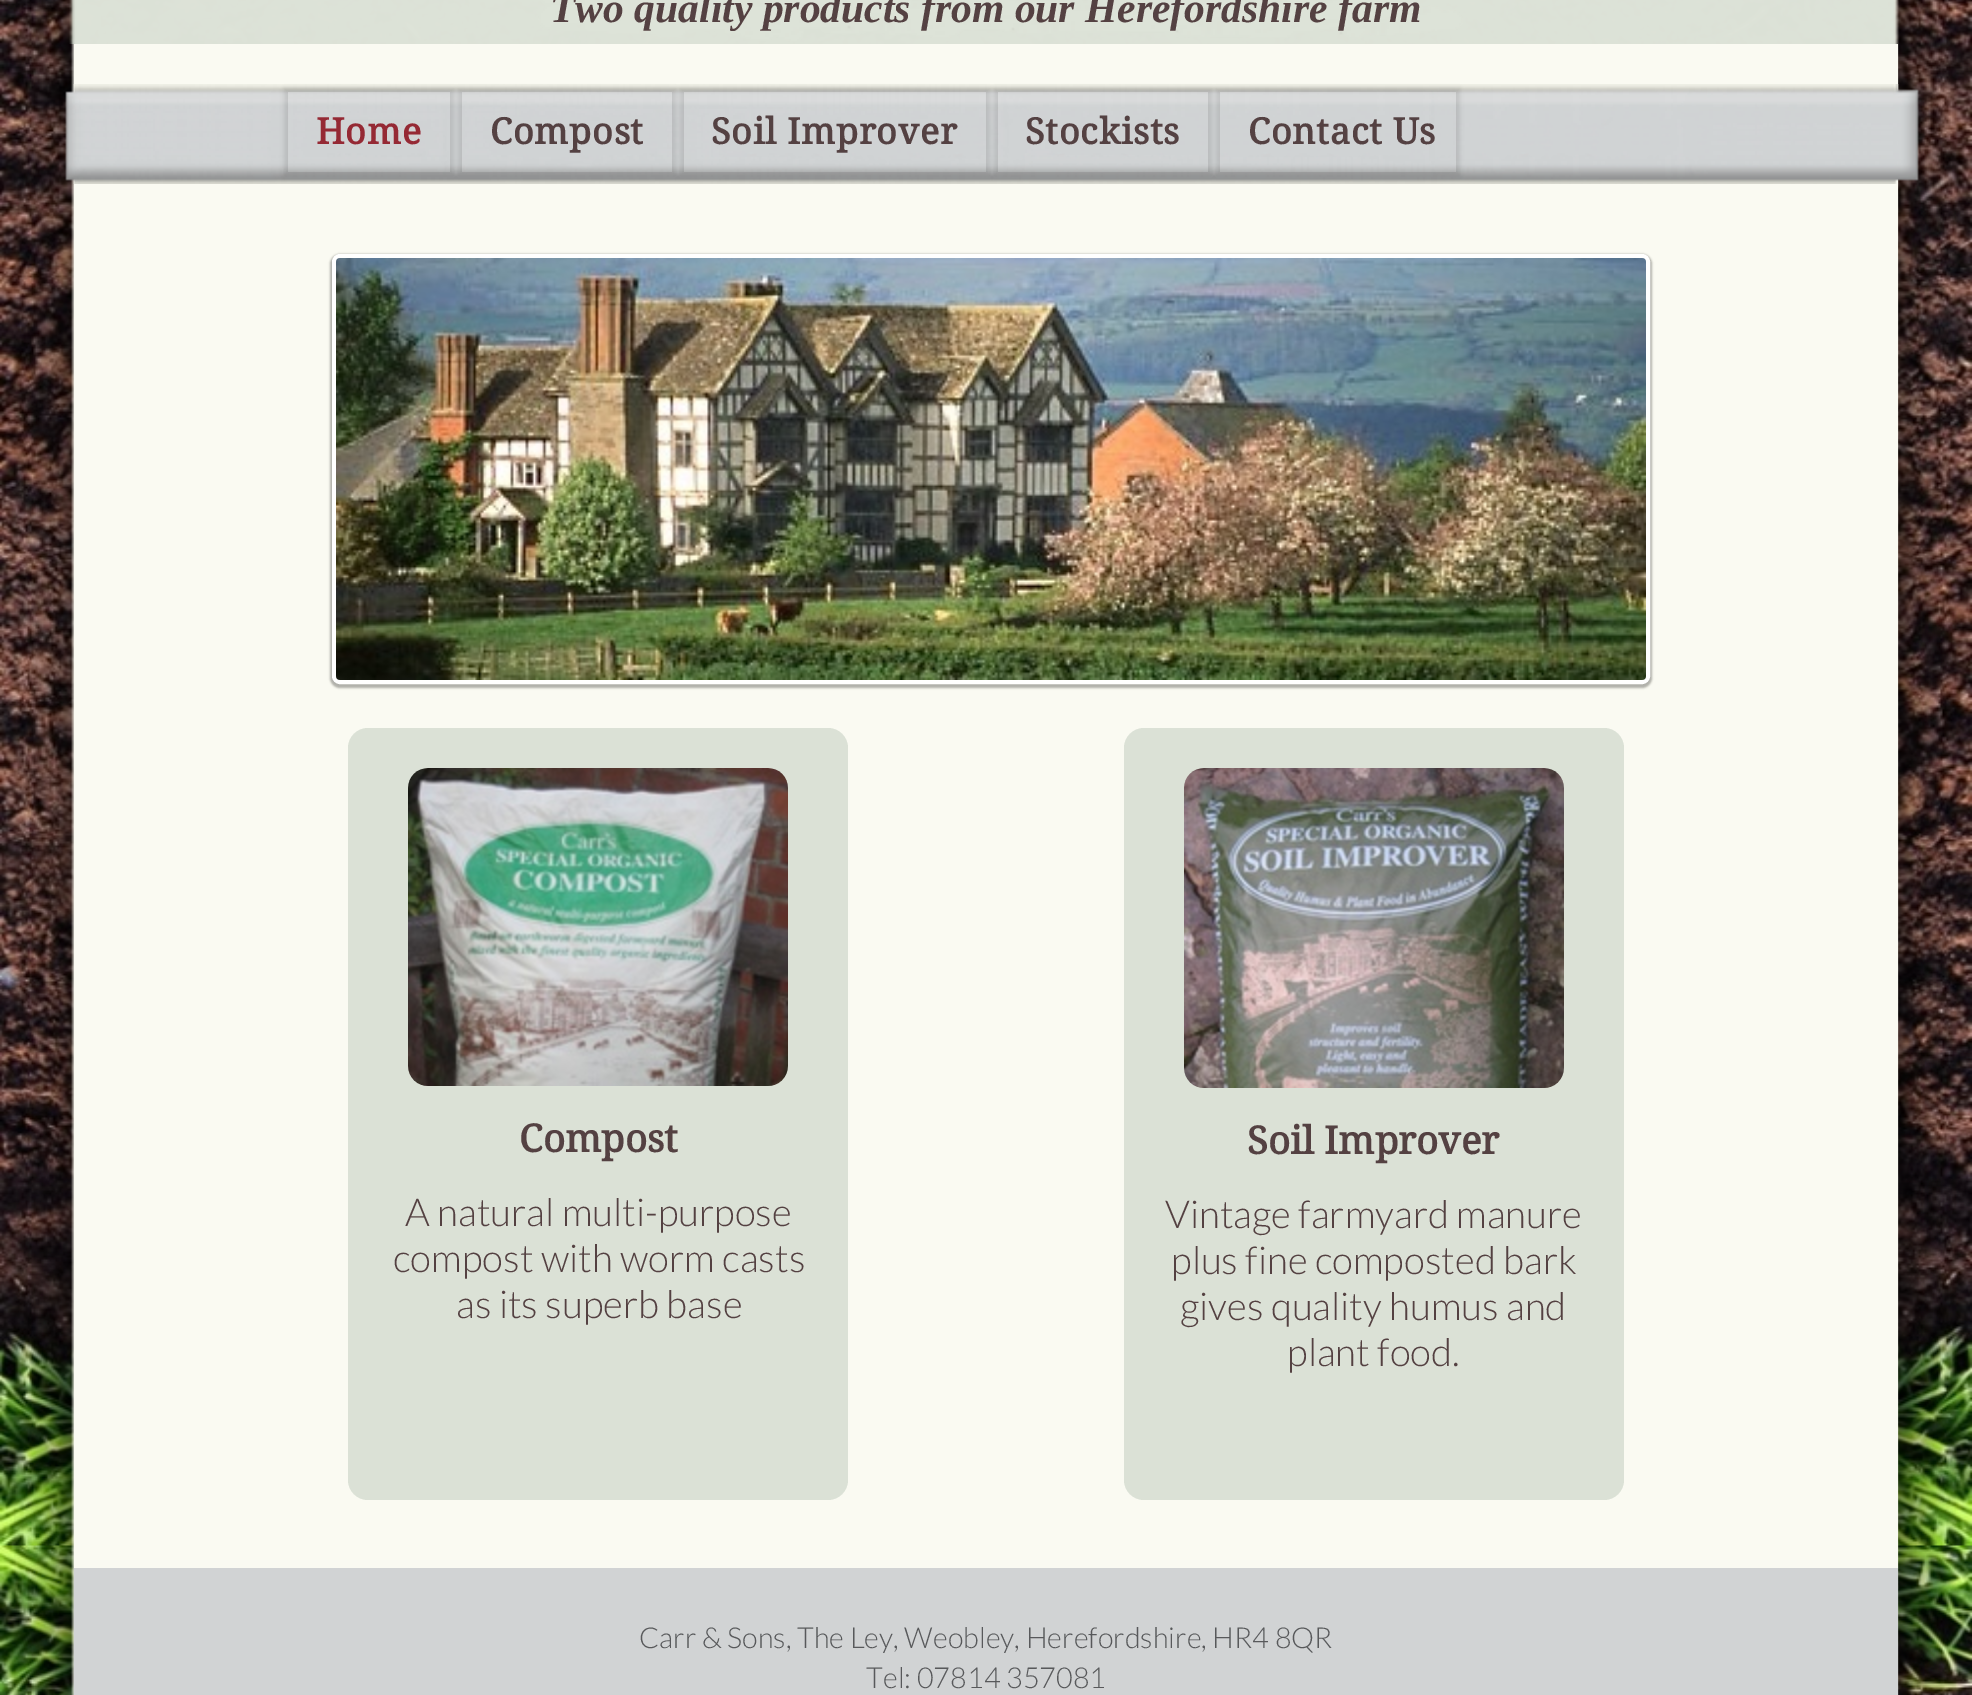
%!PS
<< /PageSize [1972 1695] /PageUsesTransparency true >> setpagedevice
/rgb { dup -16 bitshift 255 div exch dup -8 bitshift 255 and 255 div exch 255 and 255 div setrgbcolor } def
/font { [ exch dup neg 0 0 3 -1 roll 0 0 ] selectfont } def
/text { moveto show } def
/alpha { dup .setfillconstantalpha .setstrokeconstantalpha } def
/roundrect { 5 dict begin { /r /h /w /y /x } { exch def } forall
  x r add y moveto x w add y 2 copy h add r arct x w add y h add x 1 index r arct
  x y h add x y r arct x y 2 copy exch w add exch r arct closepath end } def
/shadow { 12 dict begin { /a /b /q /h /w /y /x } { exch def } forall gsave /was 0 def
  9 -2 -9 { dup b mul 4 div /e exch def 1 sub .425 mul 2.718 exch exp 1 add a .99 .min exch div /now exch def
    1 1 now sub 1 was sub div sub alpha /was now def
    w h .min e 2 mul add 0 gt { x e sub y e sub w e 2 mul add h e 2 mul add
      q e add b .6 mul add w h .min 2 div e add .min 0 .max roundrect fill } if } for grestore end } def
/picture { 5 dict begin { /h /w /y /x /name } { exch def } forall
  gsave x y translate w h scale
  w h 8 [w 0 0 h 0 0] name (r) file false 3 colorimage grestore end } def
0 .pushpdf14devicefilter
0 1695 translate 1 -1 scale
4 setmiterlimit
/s1 { /LiberationSerif-BoldItalic 41.6 font 16#544142 rgb } def
/s2 { /DroidSerif-Bold 38.4 font 16#544142 rgb } def
/s3 { /Lato-Light 38.4 font 16#544142 rgb } def
/s4 { /Lato-Light 28.8 font 16#58595B rgb } def
16#FFFFFF rgb
0 0 1972 1695 rectfill
(pic1.raw) 0 0 1972 1695 picture
(pic2.raw) 18 0 1937 44 picture
s1
(Two quality products from our Herefordshire farm) 550 22 text
(pic3.raw) 14 44 1942 1651 picture
16#FAFAF2 rgb
74 44 1824 1524 rectfill
(pic4.raw) 65 84 1854 100 picture
gsave
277 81 moveto 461 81 lineto 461 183 lineto 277 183 lineto closepath 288 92 moveto 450 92 lineto 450 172 lineto 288 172 lineto closepath eoclip newpath
16#000000 rgb
284 88 170 88 0 2 0.1 shadow
grestore
/DroidSerif-Bold 36 font
16#952934 rgb
316 144 moveto 0.75 0 (Home) ashow
gsave
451 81 moveto 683 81 lineto 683 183 lineto 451 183 lineto closepath 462 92 moveto 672 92 lineto 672 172 lineto 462 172 lineto closepath eoclip newpath
16#000000 rgb
458 88 218 88 0 2 0.1 shadow
grestore
16#544142 rgb
490 144 moveto 0.75 0 (Compost) ashow
gsave
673 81 moveto 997 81 lineto 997 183 lineto 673 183 lineto closepath 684 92 moveto 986 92 lineto 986 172 lineto 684 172 lineto closepath eoclip newpath
16#000000 rgb
680 88 310 88 0 2 0.1 shadow
grestore
711 144 moveto 0.75 0 (Soil Improver) ashow
gsave
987 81 moveto 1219 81 lineto 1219 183 lineto 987 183 lineto closepath 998 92 moveto 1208 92 lineto 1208 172 lineto 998 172 lineto closepath eoclip newpath
16#000000 rgb
994 88 218 88 0 2 0.1 shadow
grestore
1025 144 moveto 0.75 0 (Stockists) ashow
gsave
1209 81 moveto 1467 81 lineto 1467 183 lineto 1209 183 lineto closepath 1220 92 moveto 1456 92 lineto 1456 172 lineto 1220 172 lineto closepath eoclip newpath
16#000000 rgb
1216 88 244 88 0 2 0.1 shadow
grestore
1248 144 moveto 0.75 0 (Contact Us) ashow
16#000000 rgb
330 254 1322 434 10 1 0.3 shadow
16#FFFFFF rgb
4 setlinewidth
334 256 1314 426 6 roundrect stroke
(pic5.raw) 336 258 1310 422 picture
16#DBE1D6 rgb
348 728 500 772 20 roundrect fill
(pic6.raw) 408 768 380 318 picture
s2
(Compost) 519 1152 text
s3
(A natural multi-purpose) 405 1226 text
(compost with worm casts) 393 1272 text
(as its superb base) 456 1318 text
16#DBE1D6 rgb
1124 728 500 772 20 roundrect fill
(pic7.raw) 1184 768 380 320 picture
s2
(Soil Improver) 1247 1154 text
s3
(Vintage farmyard manure) 1165 1228 text
(plus fine composted bark) 1171 1274 text
(gives quality humus and) 1180 1320 text
(plant food.) 1287 1366 text
16#D1D3D4 rgb
74 1568 1824 127 rectfill
s4
(Carr & Sons, The Ley, Weobley, Herefordshire, HR4 8QR) 639 1648 text
(Tel: 07814 357081) 866 1688 text
.poppdf14devicefilter showpage
